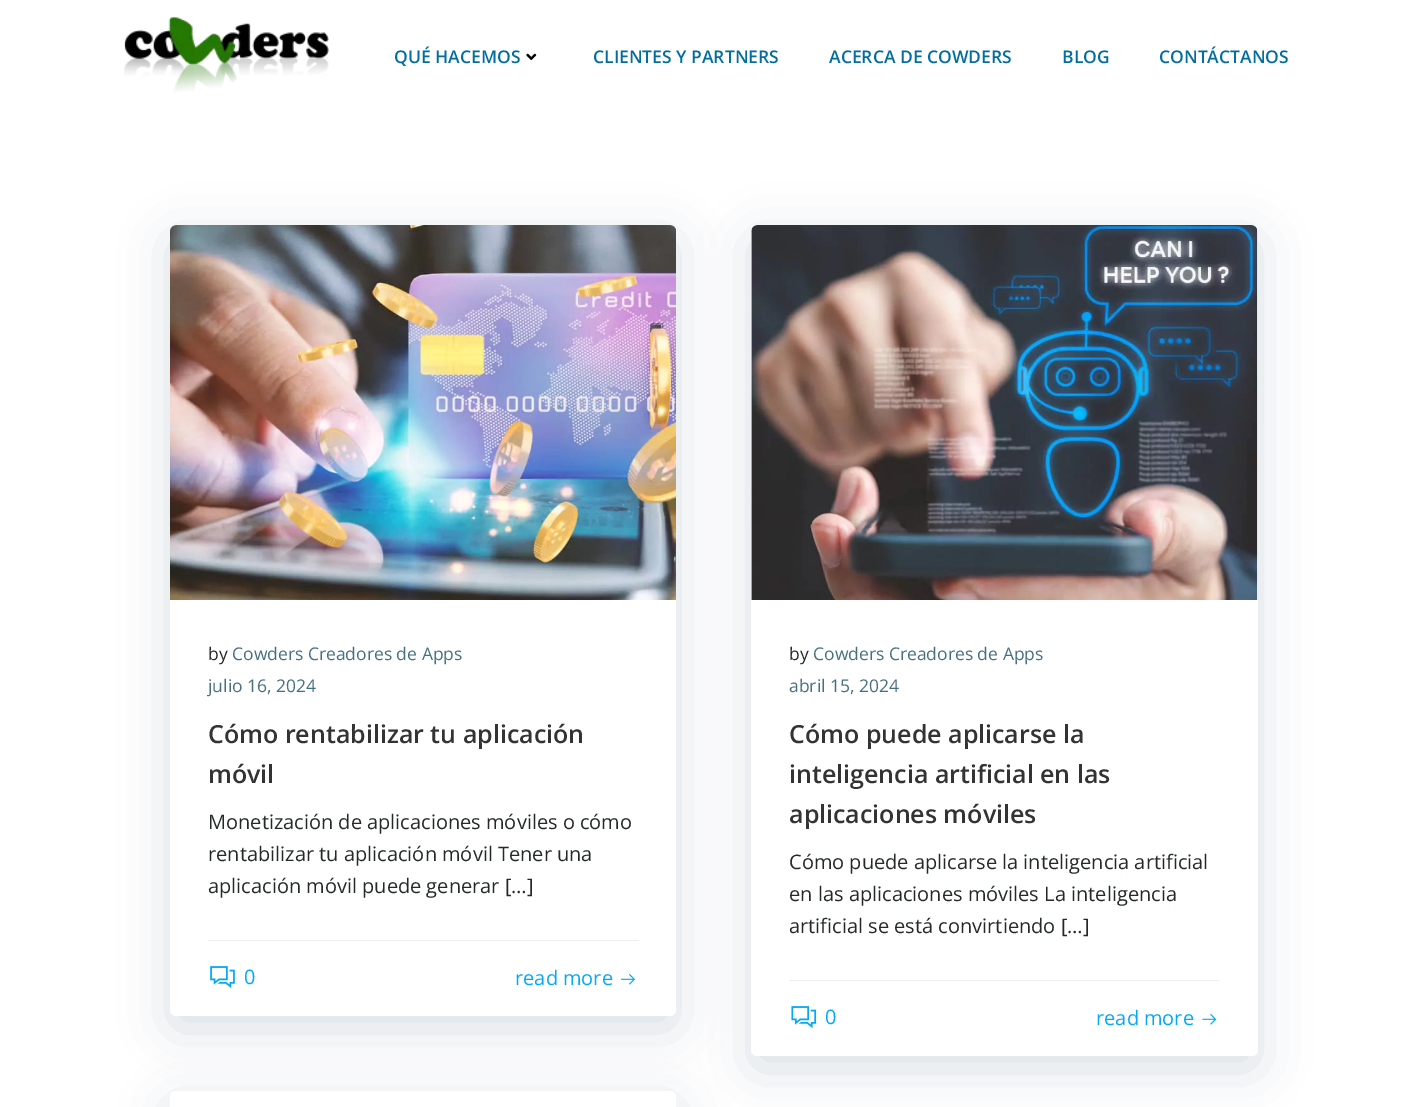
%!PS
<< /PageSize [1427 1107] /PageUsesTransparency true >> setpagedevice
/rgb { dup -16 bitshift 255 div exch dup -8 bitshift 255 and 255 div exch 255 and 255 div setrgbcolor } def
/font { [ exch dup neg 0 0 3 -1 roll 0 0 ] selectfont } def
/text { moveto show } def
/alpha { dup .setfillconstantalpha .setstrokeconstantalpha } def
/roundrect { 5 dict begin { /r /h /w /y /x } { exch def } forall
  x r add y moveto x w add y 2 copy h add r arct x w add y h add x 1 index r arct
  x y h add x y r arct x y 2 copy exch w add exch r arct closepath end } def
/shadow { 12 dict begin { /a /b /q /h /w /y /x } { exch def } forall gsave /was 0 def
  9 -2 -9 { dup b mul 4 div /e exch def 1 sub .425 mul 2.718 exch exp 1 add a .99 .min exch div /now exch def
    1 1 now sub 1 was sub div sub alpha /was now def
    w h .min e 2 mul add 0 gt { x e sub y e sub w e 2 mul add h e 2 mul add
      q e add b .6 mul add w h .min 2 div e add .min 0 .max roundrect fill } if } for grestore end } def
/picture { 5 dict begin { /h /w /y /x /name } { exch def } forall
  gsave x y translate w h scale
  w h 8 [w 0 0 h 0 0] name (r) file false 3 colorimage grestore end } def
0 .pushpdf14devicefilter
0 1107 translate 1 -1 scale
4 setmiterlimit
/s1 { /OpenSans-SemiBold 17.5 font 16#026E9F rgb } def
/s2 { /OpenSans-Regular 17.5 font 16#25292A rgb } def
/s3 { /OpenSans-Regular 17.5 font 16#46707F rgb } def
/s4 { /OpenSans-SemiBold 25 font 16#333333 rgb } def
/s5 { /OpenSans-Regular 20 font 16#25292A rgb } def
/s6 { /OpenSans-Regular 20 font 16#03A9F4 rgb } def
16#FFFFFF rgb
0 0 1427 1107 rectfill
(pic1.raw) 124 16 205 76 picture
s1
(QUÉ HACEMOS) 394 63 text
(pic2.raw) 526 53 11 8 picture
(CLIENTES Y PARTNERS) 593 63 text
(ACERCA DE COWDERS) 829 63 text
(BLOG) 1062 63 text
(CONTÁCTANOS) 1159 63 text
16#01334A rgb
170 238 506 791 6 25 0.15 shadow
16#FFFFFF rgb
170 225 506 791 6 roundrect fill
(pic3.raw) 170 225 506 375 picture
16#EEEEEE rgb
208 940 431 1 rectfill
s2
(by) 208 660 text
s3
(Cowders Creadores de Apps) 232 660 text
(julio 16, 2024) 208 692 text
s4
(Cómo rentabilizar tu aplicación) 208 743 text
(móvil) 208 783 text
s5
(Monetización de aplicaciones móviles o cómo) 208 829 text
(rentabilizar tu aplicación móvil Tener una) 208 861 text
(aplicación móvil puede generar […]) 208 893 text
(pic4.raw) 210 966 25 23 picture
s6
(0) 244 984 text
(read more) 515 985 text
(pic5.raw) 621 974 14 11 picture
16#01334A rgb
751 238 507 831 6 25 0.15 shadow
16#FFFFFF rgb
751 225 507 831 6 roundrect fill
(pic6.raw) 751 225 507 375 picture
16#EEEEEE rgb
789 980 431 1 rectfill
s2
(by) 789 660 text
s3
(Cowders Creadores de Apps) 813 660 text
(abril 15, 2024) 789 692 text
s4
(Cómo puede aplicarse la) 789 743 text
(inteligencia artificial en las) 789 783 text
(aplicaciones móviles) 789 823 text
s5
(Cómo puede aplicarse la inteligencia artificial) 789 869 text
(en las aplicaciones móviles La inteligencia) 789 901 text
(artificial se está convirtiendo […]) 789 933 text
(pic7.raw) 791 1006 26 23 picture
s6
(0) 825 1024 text
(read more) 1096 1025 text
(pic8.raw) 1202 1014 15 11 picture
16#01334A rgb
170 1104 506 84 6 25 0.15 shadow
16#FFFFFF rgb
170 1091 506 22 6 roundrect fill
.poppdf14devicefilter showpage
